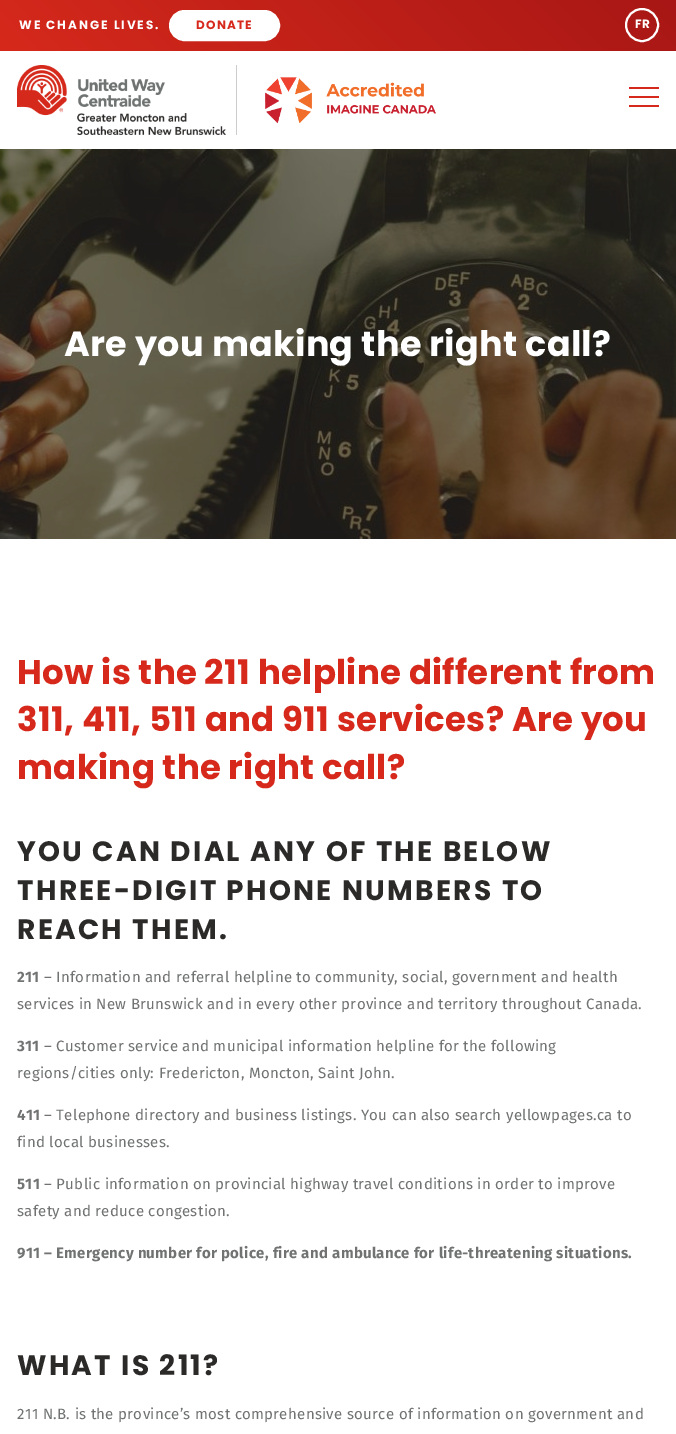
%!PS
<< /PageSize [676 1434] >> setpagedevice
/rgb { dup -16 bitshift 255 div exch dup -8 bitshift 255 and 255 div exch 255 and 255 div setrgbcolor } def
/font { [ exch dup neg 0 0 3 -1 roll 0 0 ] selectfont } def
/text { moveto show } def
/circle { newpath 0 360 arc closepath } def
/roundrect { 5 dict begin { /r /h /w /y /x } { exch def } forall
  x r add y moveto x w add y 2 copy h add r arct x w add y h add x 1 index r arct
  x y h add x y r arct x y 2 copy exch w add exch r arct closepath end } def
/picture { 5 dict begin { /h /w /y /x /name } { exch def } forall
  gsave x y translate w h scale
  w h 8 [w 0 0 h 0 0] name (r) file false 3 colorimage grestore end } def
0 1434 translate 1 -1 scale
4 setmiterlimit
/s1 { /Poppins-Bold 12 font 16#FFFFFF rgb } def
16#FFFFFF rgb
0 0 676 1434 rectfill
gsave 0 0 moveto 676 0 lineto 676 51 lineto 0 51 lineto closepath clip newpath
<< /ShadingType 2 /ColorSpace /DeviceRGB /Coords [156 207 520 -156] /Extend [true true] /Function << /FunctionType 2 /Domain [0 1] /C0 [0.839 0.161 0.11] /C1 [0.659 0.09 0.082] /N 1 >> >> shfill grestore
/Poppins-Bold 12 font
19 29 moveto 1.9 0 (WE CHANGE LIVES.) ashow
170 11 109 29 14.5 roundrect gsave fill grestore
2 setlinewidth
stroke
16#D6291C rgb
196 29 moveto 1.25 0 (DONATE) ashow
16#FFFFFF rgb
642 25 16 circle stroke
(FR) 635 28 text
(pic1.raw) 17 65 209 70 picture
16#CBCDCE rgb
236 65 1 70 rectfill
(pic2.raw) 265 77 171 47 picture
16#D6291C rgb
629 96 30 2 rectfill
629 87 30 2 rectfill
629 105 30 2 rectfill
(pic3.raw) 0 149 676 390 picture
/Poppins-Bold 35 font
16#FFFFFF rgb
64 356 moveto 0.3 0 (Are you making the right call?) ashow
/Poppins-Bold 34 font
16#D6291C rgb
17 684 moveto 0.3 0 (How is the 211 helpline different from) ashow
17 731 moveto 0.3 0 (311, 411, 511 and 911 services? Are you) ashow
17 779 moveto 0.3 0 (making the right call?) ashow
/Poppins-Bold 28 font
16#2C2A29 rgb
17 861 moveto 2.25 0 (YOU CAN DIAL ANY OF THE BELOW) ashow
17 900 moveto 2.25 0 (THREE-DIGIT PHONE NUMBERS TO) ashow
17 939 moveto 2.25 0 (REACH THEM.) ashow
/FiraSans-Bold 15 font
16#707372 rgb
17 982 moveto 0.3 0 (211) ashow
/FiraSans-Regular 15 font
44 982 moveto 0.3 0 (– Information and referral helpline to community, social, government and health) ashow
17 1009 moveto 0.3 0 (services in New Brunswick and in every other province and territory throughout Canada.) ashow
/FiraSans-Bold 15 font
17 1051 moveto 0.3 0 (311) ashow
/FiraSans-Regular 15 font
44 1051 moveto 0.3 0 (– Customer service and municipal information helpline for the following) ashow
17 1078 moveto 0.3 0 (regions/cities only: Fredericton, Moncton, Saint John.) ashow
/FiraSans-Bold 15 font
17 1120 moveto 0.3 0 (411) ashow
/FiraSans-Regular 15 font
44 1120 moveto 0.3 0 (– Telephone directory and business listings. You can also search yellowpages.ca to) ashow
17 1147 moveto 0.3 0 (find local businesses.) ashow
/FiraSans-Bold 15 font
17 1189 moveto 0.3 0 (511) ashow
/FiraSans-Regular 15 font
44 1189 moveto 0.3 0 (– Public information on provincial highway travel conditions in order to improve) ashow
17 1216 moveto 0.3 0 (safety and reduce congestion.) ashow
/FiraSans-Bold 15 font
17 1258 moveto 0.3 0 (911 – Emergency number for police, fire and ambulance for life-threatening situations.) ashow
/Poppins-Bold 28 font
16#2C2A29 rgb
17 1375 moveto 2.25 0 (WHAT IS 211?) ashow
/FiraSans-Regular 15 font
16#707372 rgb
17 1419 moveto 0.3 0 (211 N.B. is the province’s most comprehensive source of information on government and) ashow
showpage
